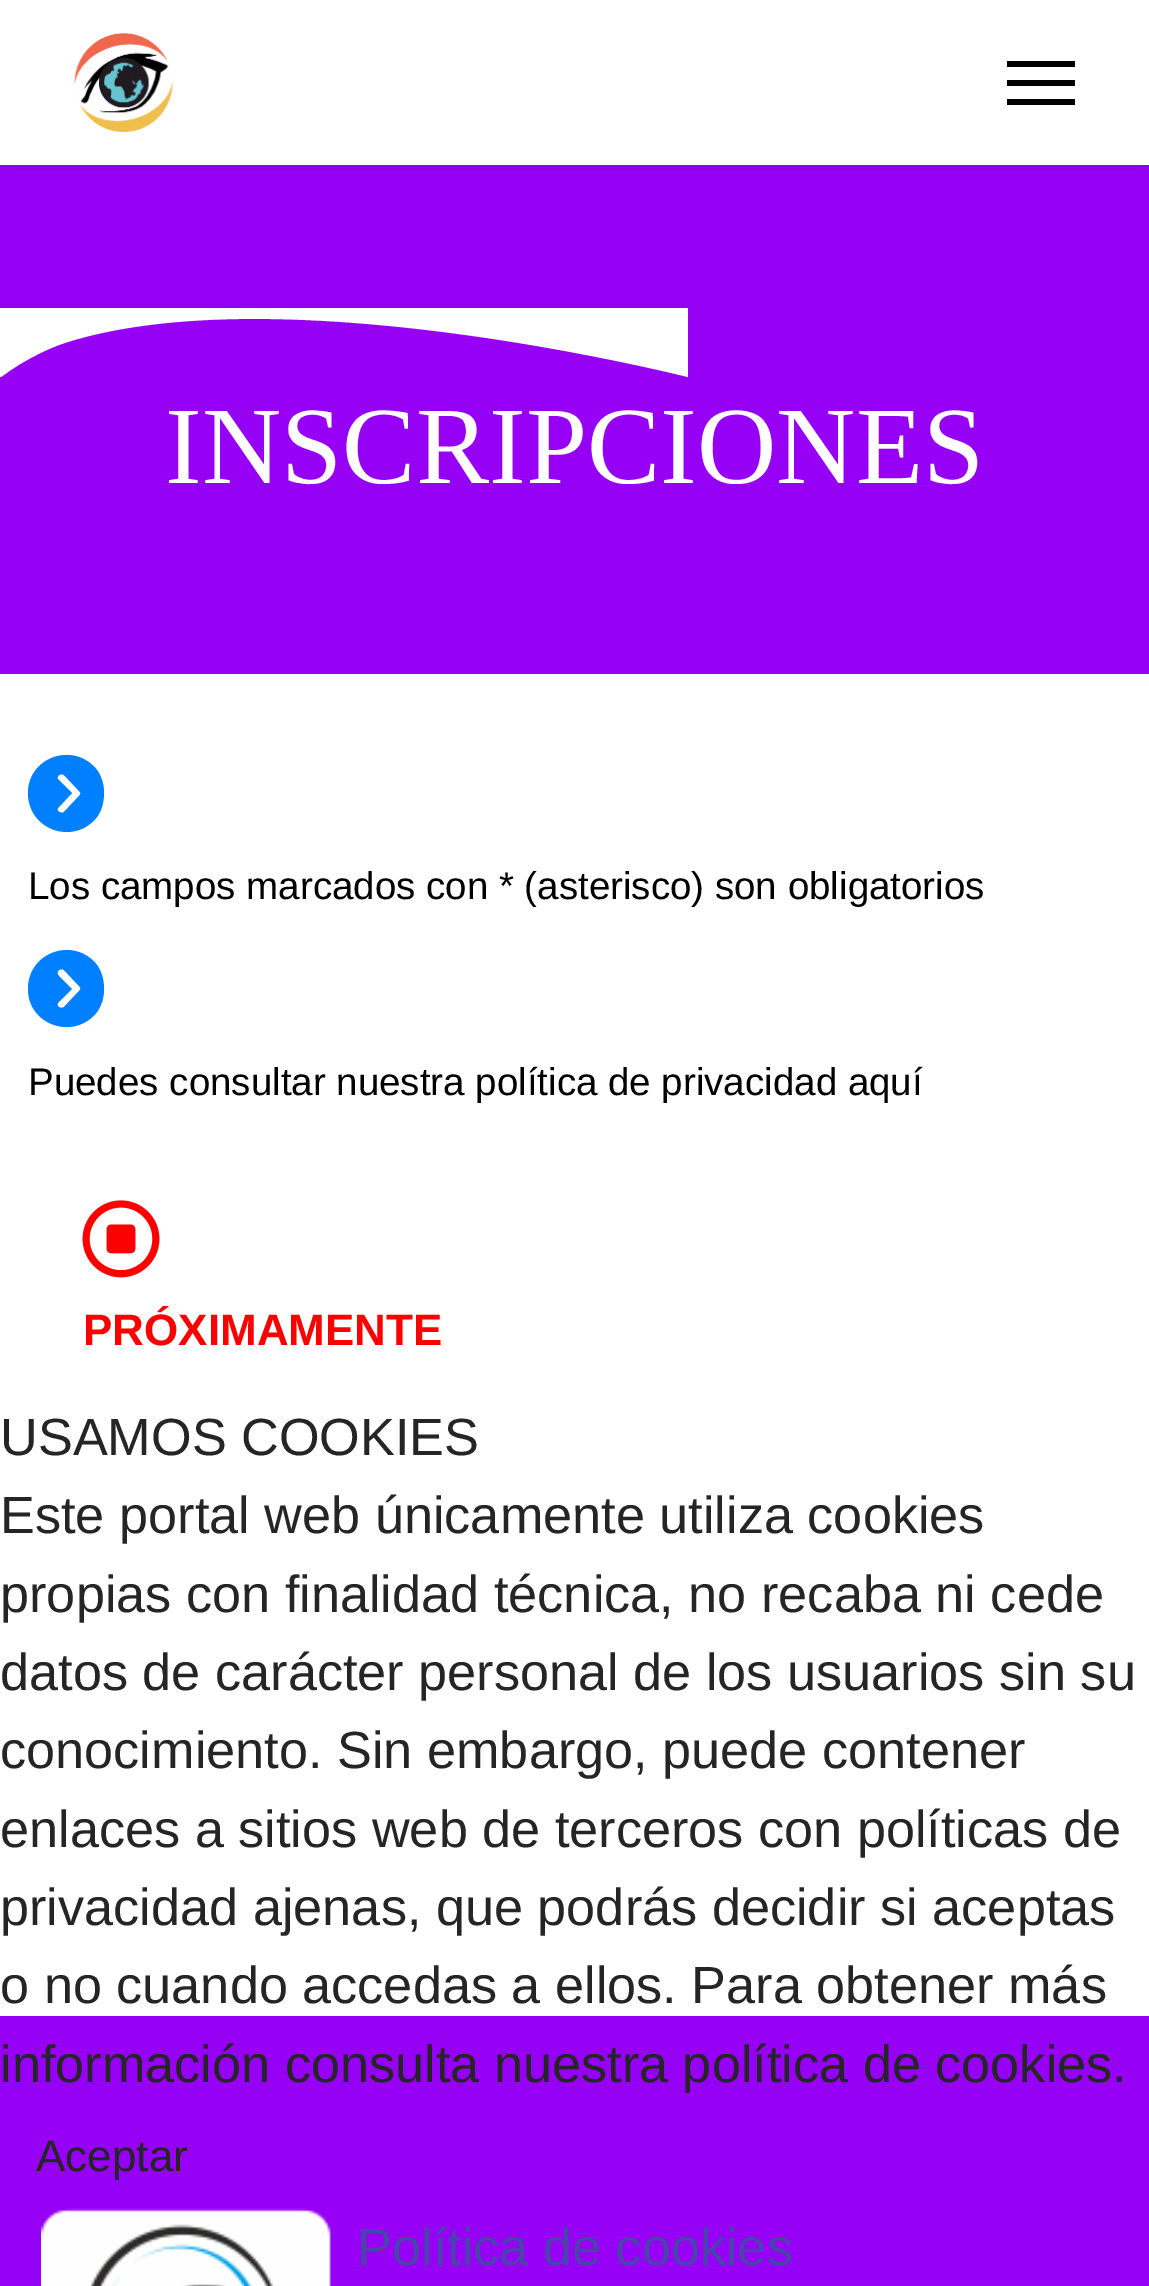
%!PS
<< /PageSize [1149 2286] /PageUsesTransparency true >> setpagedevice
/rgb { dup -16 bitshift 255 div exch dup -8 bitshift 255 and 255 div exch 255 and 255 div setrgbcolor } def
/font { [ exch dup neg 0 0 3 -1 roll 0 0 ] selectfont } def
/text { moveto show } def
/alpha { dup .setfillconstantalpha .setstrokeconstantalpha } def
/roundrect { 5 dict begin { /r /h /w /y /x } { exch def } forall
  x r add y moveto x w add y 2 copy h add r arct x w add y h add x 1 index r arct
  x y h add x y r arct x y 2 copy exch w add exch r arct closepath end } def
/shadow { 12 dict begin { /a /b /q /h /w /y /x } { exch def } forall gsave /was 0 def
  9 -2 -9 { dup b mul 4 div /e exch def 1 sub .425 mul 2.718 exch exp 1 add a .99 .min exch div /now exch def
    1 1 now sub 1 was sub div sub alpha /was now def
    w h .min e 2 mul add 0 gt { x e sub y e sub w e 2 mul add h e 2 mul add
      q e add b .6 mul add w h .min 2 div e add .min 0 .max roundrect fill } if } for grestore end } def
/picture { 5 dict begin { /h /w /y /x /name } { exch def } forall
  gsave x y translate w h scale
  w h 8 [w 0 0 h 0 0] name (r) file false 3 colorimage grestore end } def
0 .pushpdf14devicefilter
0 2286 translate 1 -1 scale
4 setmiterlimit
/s1 { /LiberationSerif-Regular 110 font 16#FFFFFF rgb } def
/s2 { /LiberationSans-Regular 38.5 font 16#000000 rgb } def
/s3 { /LiberationSans-Bold 44 font 16#FC0101 rgb } def
/s4 { /LiberationSans-Regular 52.25 font 16#252525 rgb } def
/s5 { /LiberationSans-Regular 44 font 16#252525 rgb } def
/s6 { /LiberationSans-Regular 52.25 font 16#4943AC rgb } def
16#FFFFFF rgb
0 0 1149 2286 rectfill
16#9600F5 rgb
0 165 1149 509 rectfill
gsave
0 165 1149 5 rectclip
16#000000 rgb
0 0 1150 165 0 5.5 0.1 shadow
grestore
(pic1.raw) 74 33 100 99 picture
16#000000 rgb
1007 61 68 6 rectfill
1007 80 68 6 rectfill
1007 99 68 6 rectfill
16#FFFFFF rgb
0 309 moveto 0 373 lineto 176 256 631 363 688 377 curveto 688 309 lineto closepath fill
0 377 moveto 1 377 lineto 188 235 688 361 688 361 curveto 688 308 lineto 0 308 lineto closepath fill
s1
(INSCRIPCIONES) 165 483 text
16#0080FE rgb
28 793 moveto 28 830 74 846 97 817 curveto 102 810 104 802 104 793 curveto 104 785 102 777 97 770 curveto 74 741 28 757 28 793 curveto closepath 64 812 moveto 61 814 56 811 58 808 curveto 72 793 lineto 59 780 lineto 57 779 57 777 59 775 curveto 60 774 62 774 64 775 curveto 79 791 lineto 81 793 81 794 79 796 curveto closepath fill
s2
(Los campos marcados con * \(asterisco\) son obligatorios) 28 899 text
16#0080FE rgb
28 989 moveto 28 1025 74 1041 97 1012 curveto 102 1005 104 997 104 989 curveto 104 980 102 972 97 965 curveto 74 936 28 952 28 989 curveto closepath 64 1007 moveto 61 1009 56 1007 58 1003 curveto 72 989 lineto 59 976 lineto 57 974 57 972 59 970 curveto 60 969 62 969 64 970 curveto 79 986 lineto 81 988 81 989 79 991 curveto closepath fill
s2
(Puedes consultar nuestra política de privacidad aquí) 28 1095 text
(pic2.raw) 82 1200 78 78 picture
s3
(PRÓXIMAMENTE) 83 1345 text
16#9600F5 rgb
0 2016 1149 270 rectfill
(pic3.raw) 41 2208 290 78 picture
s4
(USAMOS COOKIES) 0 1455 text
(Este portal web únicamente utiliza cookies) 0 1533 text
(propias con finalidad técnica, no recaba ni cede) 0 1612 text
(datos de carácter personal de los usuarios sin su) 0 1690 text
(conocimiento. Sin embargo, puede contener) 0 1768 text
(enlaces a sitios web de terceros con políticas de) 0 1847 text
(privacidad ajenas, que podrás decidir si aceptas) 0 1925 text
(o no cuando accedas a ellos. Para obtener más) 0 2003 text
(información consulta nuestra política de cookies.) 0 2082 text
s5
(Aceptar) 36 2171 text
s6
(Política de cookies) 357 2265 text
.poppdf14devicefilter showpage
